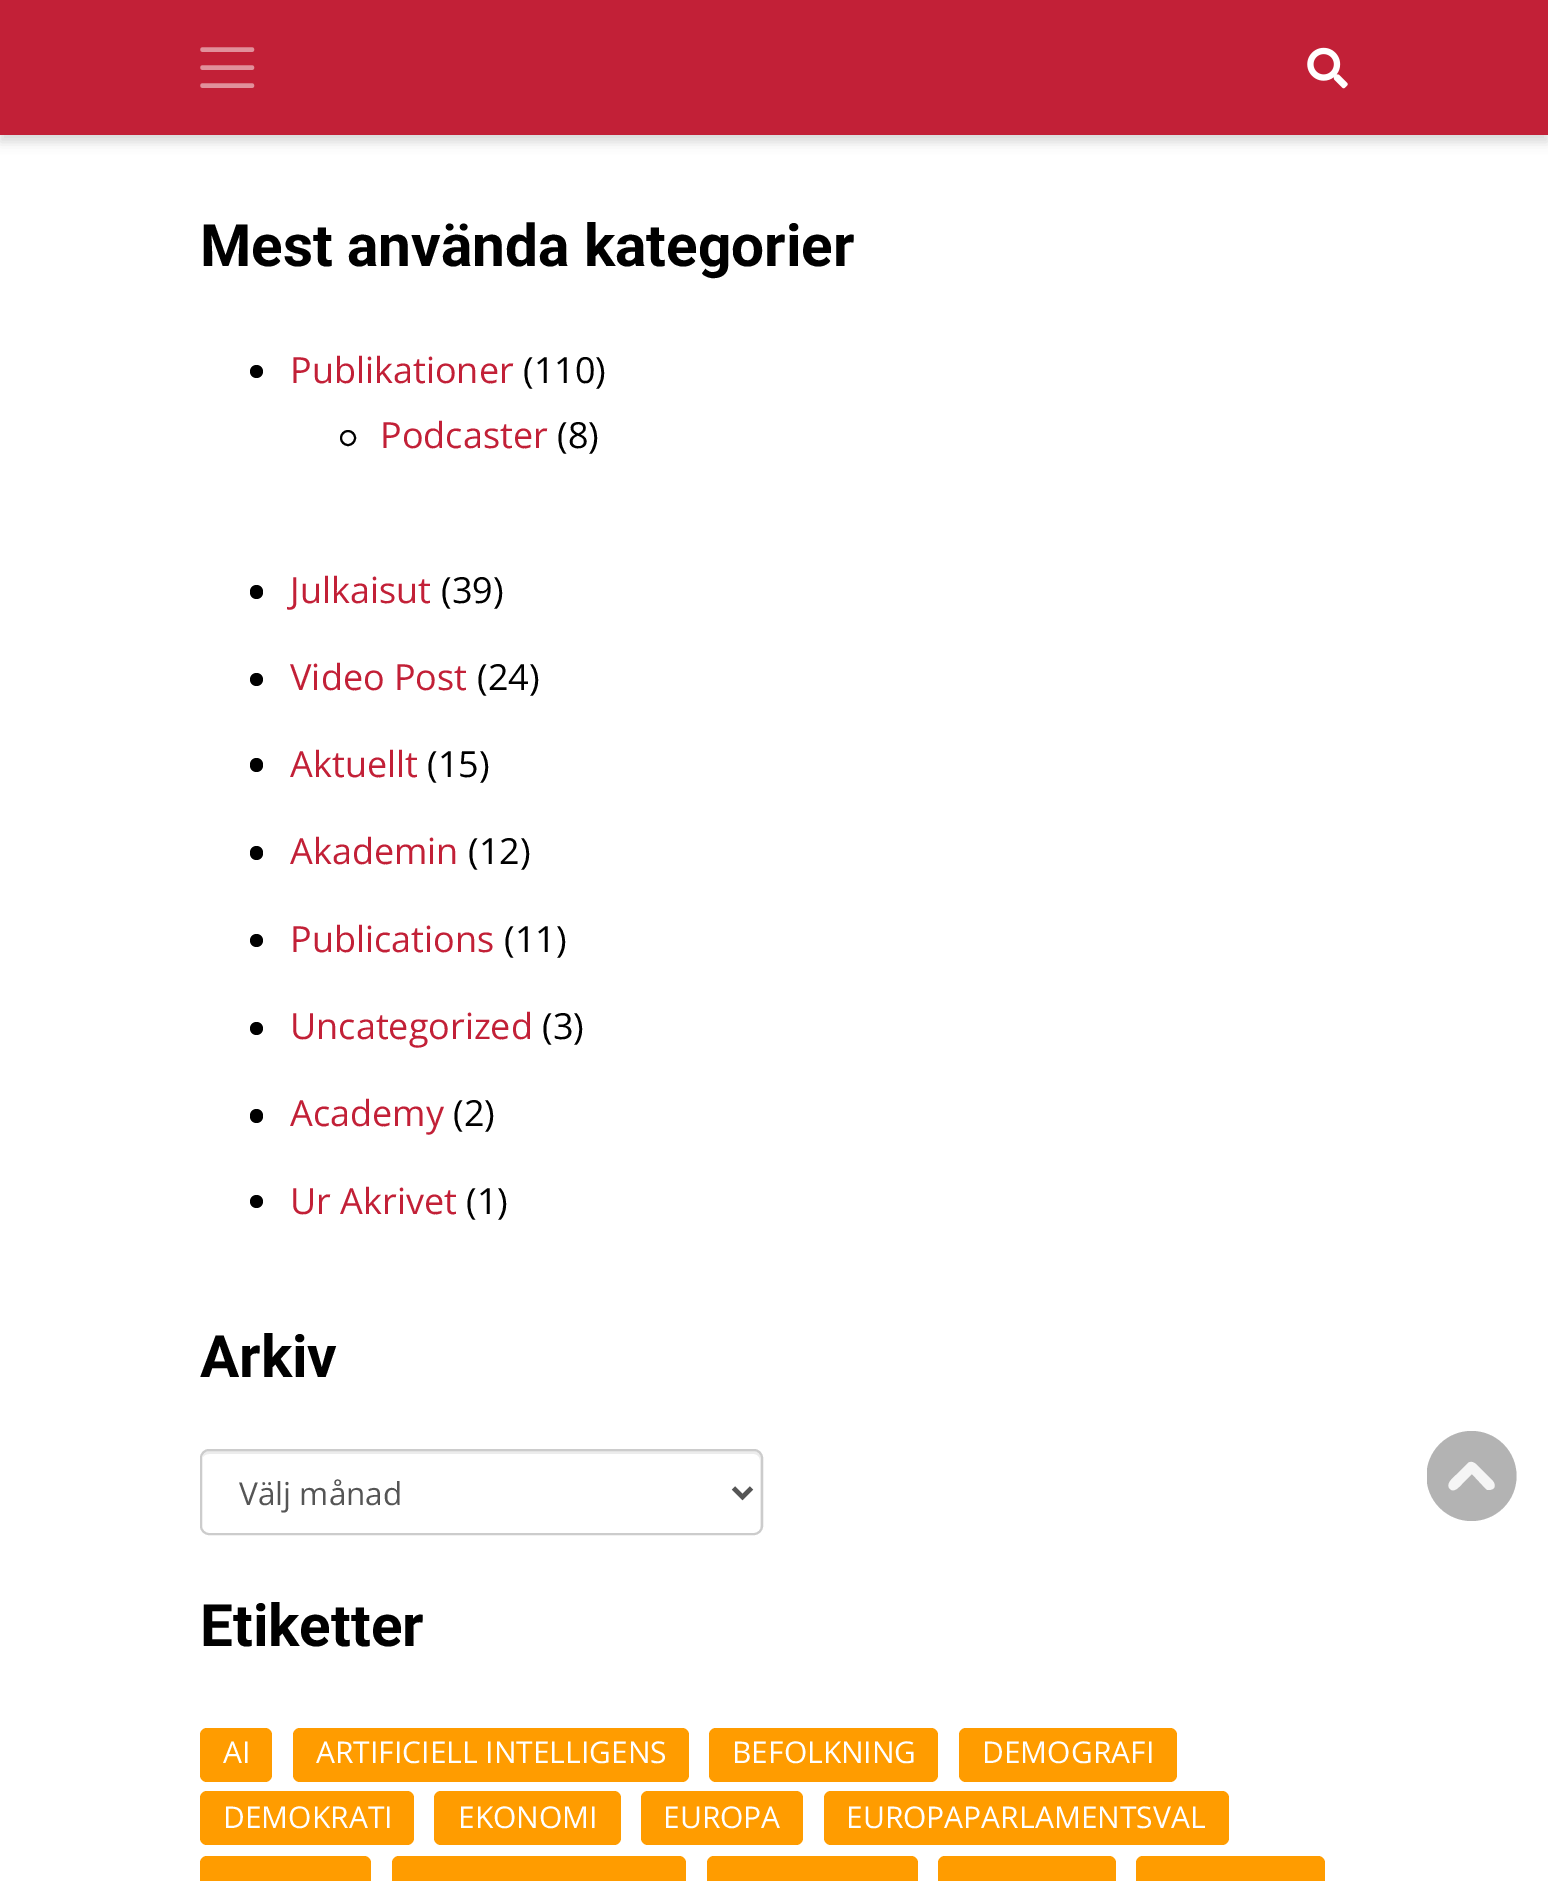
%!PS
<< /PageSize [1548 1881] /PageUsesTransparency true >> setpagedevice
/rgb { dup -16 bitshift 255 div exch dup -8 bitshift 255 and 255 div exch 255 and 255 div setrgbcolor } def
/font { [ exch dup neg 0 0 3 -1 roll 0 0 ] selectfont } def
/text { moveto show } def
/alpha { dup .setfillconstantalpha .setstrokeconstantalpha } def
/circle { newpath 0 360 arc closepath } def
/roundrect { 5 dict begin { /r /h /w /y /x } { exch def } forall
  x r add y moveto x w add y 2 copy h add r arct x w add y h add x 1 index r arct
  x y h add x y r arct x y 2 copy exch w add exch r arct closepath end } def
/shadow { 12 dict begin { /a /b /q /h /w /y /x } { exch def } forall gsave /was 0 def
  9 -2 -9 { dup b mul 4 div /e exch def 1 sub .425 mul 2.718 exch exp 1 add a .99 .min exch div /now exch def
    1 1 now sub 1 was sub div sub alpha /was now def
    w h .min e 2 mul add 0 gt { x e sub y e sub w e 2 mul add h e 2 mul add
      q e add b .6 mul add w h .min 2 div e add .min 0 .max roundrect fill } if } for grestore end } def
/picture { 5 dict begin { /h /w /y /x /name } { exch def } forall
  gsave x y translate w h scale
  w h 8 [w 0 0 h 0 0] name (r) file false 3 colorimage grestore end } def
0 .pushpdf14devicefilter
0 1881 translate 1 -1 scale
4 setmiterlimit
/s1 { /Roboto-Bold 58.5 font 16#000000 rgb } def
/s2 { /OpenSans-Regular 36 font 16#C22037 rgb } def
/s3 { /OpenSans-Regular 36 font 16#000000 rgb } def
/s4 { /OpenSans-Regular 31.5 font 16#555555 rgb } def
/s5 { /OpenSans-Regular 30 font 16#FFFFFF rgb } def
16#FFFFFF rgb
0 0 1548 1881 rectfill
16#3E3E3E rgb
0 7 1548 135 0 5.5 0.2 shadow
16#C22037 rgb
0 0 1548 135 rectfill
16#E1909B rgb
4.5 setlinewidth
1 setlinecap
202.5 49.5 moveto 252 49.5 lineto 202.5 67.5 moveto 252 67.5 lineto 202.5 85.5 moveto 252 85.5 lineto stroke
(pic1.raw) 1307 47 41 42 picture
s1
(Mest använda kategorier) 200 266 text
256.5 371.5 6.5 circle fill
s2
(Publikationer) 290 383 text
s3
(\(110\)) 523 383 text
2 setlinewidth
0 setlinecap
348 438 7 circle stroke
s2
(Podcaster) 380 448 text
s3
(\(8\)) 557 448 text
250 585 13 14 6.5 roundrect fill
s2
(Julkaisut) 290 603 text
s3
(\(39\)) 441 603 text
256.5 679.5 6.5 circle fill
s2
(Video Post) 290 690 text
s3
(\(24\)) 477 690 text
250 758 13 14 6.5 roundrect fill
s2
(Aktuellt) 290 777 text
s3
(\(15\)) 427 777 text
250 846 13 14 6.5 roundrect fill
s2
(Akademin) 290 864 text
s3
(\(12\)) 468 864 text
256.5 940.5 6.5 circle fill
s2
(Publications) 290 952 text
s3
(\(11\)) 504 952 text
256.5 1028.5 6.5 circle fill
s2
(Uncategorized) 290 1039 text
s3
(\(3\)) 542 1039 text
250 1109 13 14 6.5 roundrect fill
s2
(Academy) 290 1126 text
s3
(\(2\)) 453 1126 text
256.5 1201.5 6.5 circle fill
s2
(Ur Akrivet) 290 1214 text
s3
(\(1\)) 466 1214 text
s1
(Arkiv) 200 1377 text
16#ECECEC rgb
209 1454 moveto 754 1454 lineto 757 1454 760 1457 760 1460 curveto 760 1529 lineto 761 1528 761 1526 761 1525 curveto 761 1458 lineto 761 1454 758 1451 754 1451 curveto 210 1451 lineto 206 1451 203 1454 203 1457 curveto 204 1455 207 1454 209 1454 curveto closepath fill
16#CCCCCC rgb
201 1450 561 84 8 roundrect stroke
16#555555 rgb
4.5 setlinewidth
733.5 1488 moveto 742.5 1497 lineto 751.5 1488 lineto stroke
s4
(Välj månad) 239 1505 text
s1
(Etiketter) 200 1646 text
16#FF9C00 rgb
200 1728 72 54 7 roundrect fill
s5
(AI) 223 1763 text
16#FF9C00 rgb
293 1728 396 54 7 roundrect fill
s5
(ARTIFICIELL INTELLIGENS) 316 1763 text
16#FF9C00 rgb
709 1728 229 54 7 roundrect fill
s5
(BEFOLKNING) 732 1763 text
16#FF9C00 rgb
959 1728 218 54 7 roundrect fill
s5
(DEMOGRAFI) 982 1763 text
16#FF9C00 rgb
200 1791 214 54 7 roundrect fill
s5
(DEMOKRATI) 223 1828 text
16#FF9C00 rgb
434 1791 187 54 7 roundrect fill
s5
(EKONOMI) 458 1828 text
16#FF9C00 rgb
641 1791 162 54 7 roundrect fill
s5
(EUROPA) 663 1828 text
16#FF9C00 rgb
824 1791 405 54 7 roundrect fill
s5
(EUROPAPARLAMENTSVAL) 846 1828 text
16#FF9C00 rgb
200 1856 171 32 7 roundrect fill
392 1856 294 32 7 roundrect fill
707 1856 211 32 7 roundrect fill
938 1856 178 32 7 roundrect fill
1136 1856 189 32 7 roundrect fill
gsave
1427 1431 90 90 rectclip
16#B3B3B3 rgb
1471.5 1476 45 circle fill
grestore
16#F5F5F5 rgb
1489 1490 moveto 1488 1490 1487 1490 1486 1489 curveto 1472 1474 lineto 1462 1484 lineto 1459 1487 1454 1493 1450 1489 curveto 1445 1484 1453 1478 1456 1475 curveto 1468 1463 lineto 1472 1460 1476 1464 1478 1466 curveto 1490 1478 lineto 1493 1481 1496 1484 1494 1488 curveto 1493 1489 1491 1490 1489 1490 curveto closepath fill
.poppdf14devicefilter showpage
